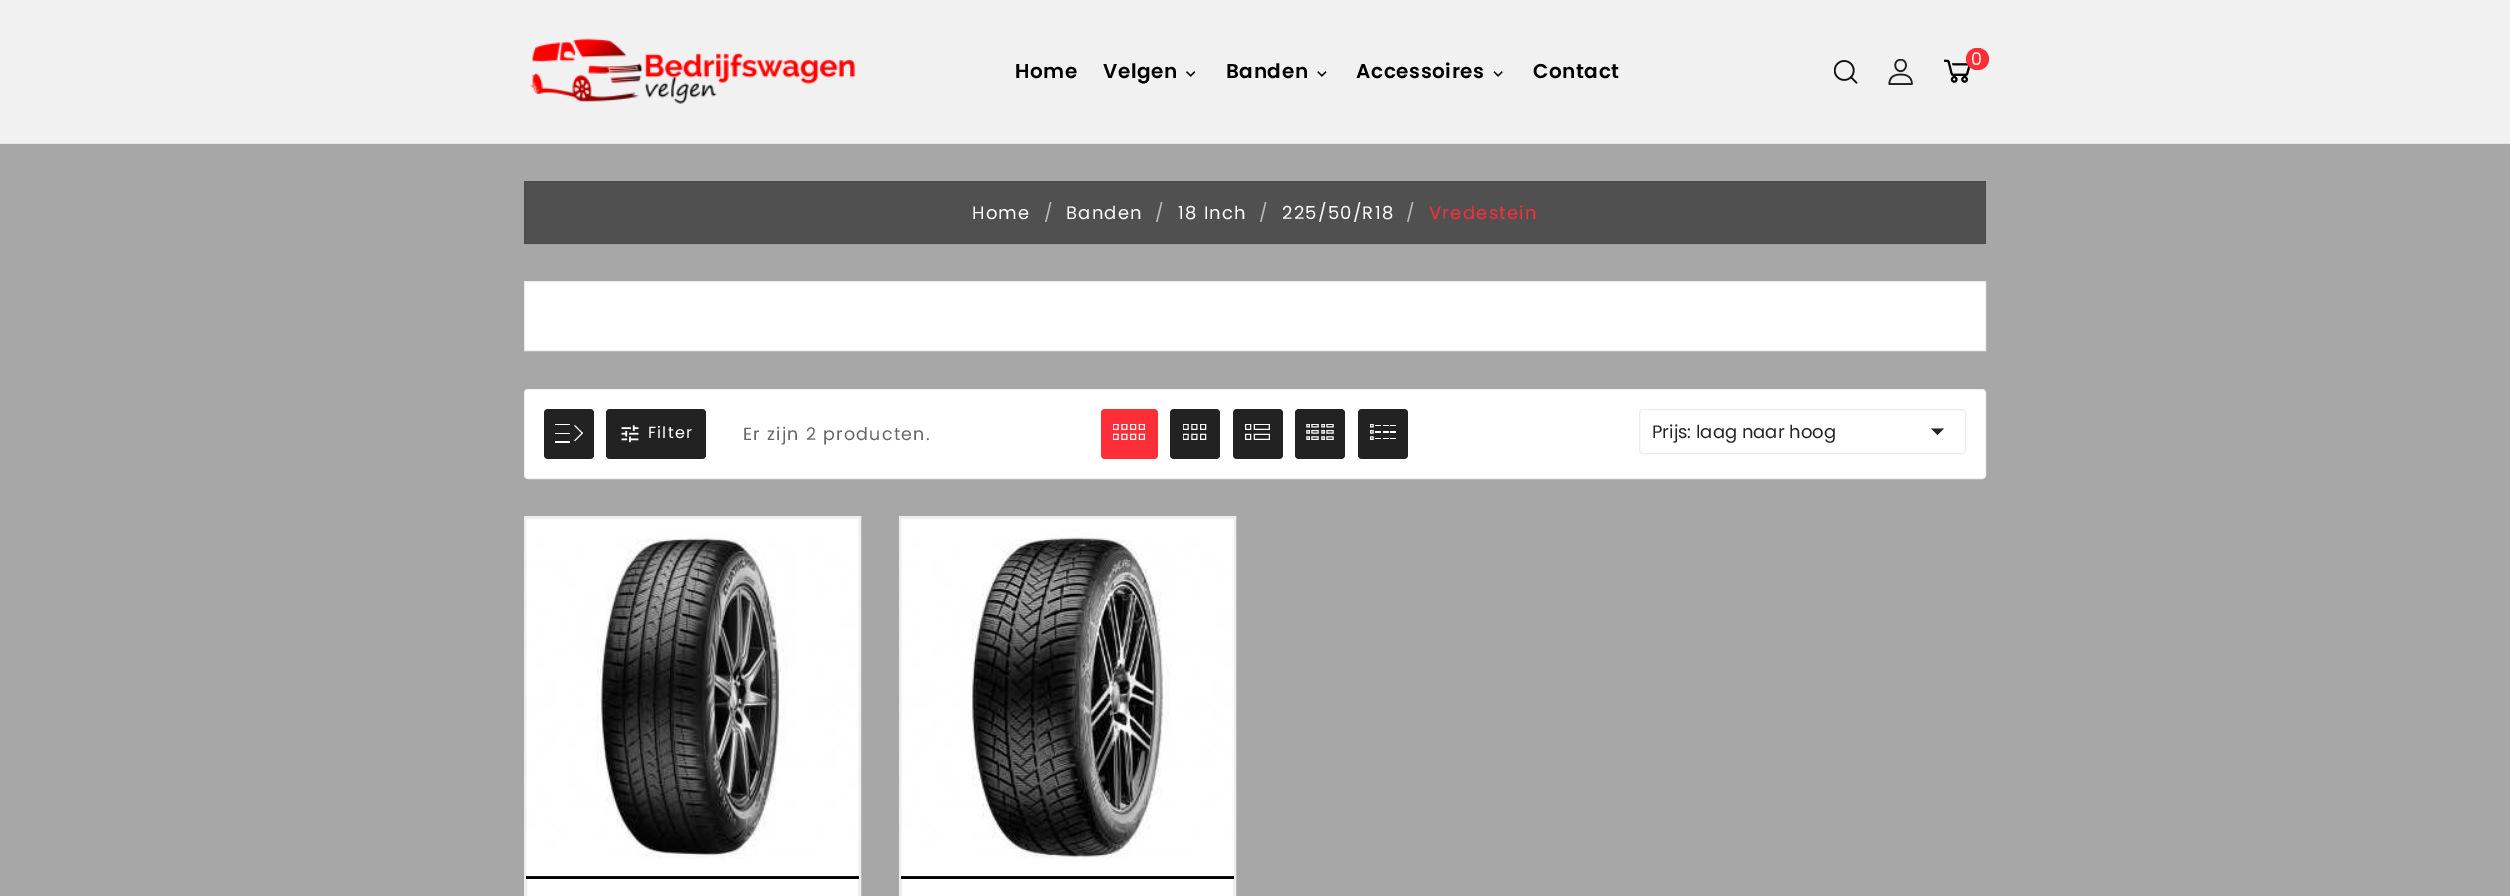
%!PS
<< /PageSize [2510 896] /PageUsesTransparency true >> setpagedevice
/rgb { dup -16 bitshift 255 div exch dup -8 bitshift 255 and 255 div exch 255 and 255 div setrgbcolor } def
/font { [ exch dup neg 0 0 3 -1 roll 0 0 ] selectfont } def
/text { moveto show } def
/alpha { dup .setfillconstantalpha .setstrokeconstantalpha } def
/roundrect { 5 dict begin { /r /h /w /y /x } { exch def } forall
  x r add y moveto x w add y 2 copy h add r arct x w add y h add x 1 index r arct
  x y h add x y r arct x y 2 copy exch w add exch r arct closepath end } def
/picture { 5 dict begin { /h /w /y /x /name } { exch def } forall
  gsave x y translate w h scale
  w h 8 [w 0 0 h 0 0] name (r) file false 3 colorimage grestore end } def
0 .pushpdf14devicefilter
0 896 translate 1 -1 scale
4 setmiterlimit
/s1 { /Poppins-Regular 18 font 16#232323 rgb } def
16#A7A7A7 rgb
0 0 2510 896 rectfill
16#F1F1F1 rgb
0 0 2510 143 rectfill
16#E5E5E5 rgb
0 143 2510 1 rectfill
(pic1.raw) 530 38 326 66 picture
(pic2.raw) 1834 60 24 24 picture
(pic3.raw) 1888 59 25 26 picture
(pic4.raw) 1944 59 27 24 picture
16#FF2D37 rgb
1966 48 23 22 11 roundrect fill
/Poppins-Regular 17.5 font
16#FFFFFF rgb
1971 65 moveto 1.25 0 (0) ashow
/Poppins-SemiBold 20 font
16#000000 rgb
1015 78 moveto 0.6 0 (Home) ashow
1103 78 moveto 0.6 0 (Velgen) ashow
(pic5.raw) 1186 71 10 6 picture
1226 78 moveto 0.6 0 (Banden) ashow
(pic6.raw) 1317 71 10 6 picture
1356 78 moveto 0.6 0 (Accessoires) ashow
(pic7.raw) 1493 71 10 6 picture
1533 78 moveto 0.6 0 (Contact) ashow
16#505050 rgb
524 181 1462 63 1 roundrect fill
0.07 alpha
16#000000 rgb
524.5 181.5 1461 62 rectstroke
/Poppins-Regular 18 font
1 alpha
16#FFFFFF rgb
972 219 moveto 1.25 0 (Home) ashow
16#BDBDBD rgb
1044 219 moveto 1.25 0 (/) ashow
16#FFFFFF rgb
1066 219 moveto 1.25 0 (Banden) ashow
16#BDBDBD rgb
1155 219 moveto 1.25 0 (/) ashow
16#FFFFFF rgb
1178 219 moveto 1.25 0 (18 Inch) ashow
16#BDBDBD rgb
1259 219 moveto 1.25 0 (/) ashow
16#FFFFFF rgb
1282 219 moveto 1.25 0 (225/50/R18) ashow
16#BDBDBD rgb
1406 219 moveto 1.25 0 (/) ashow
16#FF2D37 rgb
1429 219 moveto 1.25 0 (Vredestein) ashow
16#FFFFFF rgb
524.5 281.5 moveto 1985.5 281.5 lineto 1985.5 350.5 lineto 524.5 350.5 lineto closepath gsave fill grestore
16#EDEDED rgb
stroke
16#FFFFFF rgb
524.5 389.5 1461 89 3.5 roundrect gsave fill grestore
16#F0F0F0 rgb
stroke
16#222222 rgb
544 409 50 50 4 roundrect fill
(pic8.raw) 555 424 28 19 picture
606 409 100 50 4 roundrect fill
(pic9.raw) 621 425 18 18 picture
/Poppins-Regular 16 font
16#FFFFFF rgb
648 438 moveto 1.25 0 (Filter) ashow
/Poppins-Regular 17.5 font
16#666666 rgb
743 440 moveto 1.25 0 (Er zijn 2 producten.) ashow
16#FF2D37 rgb
1101 409 57 50 4 roundrect fill
(pic10.raw) 1113 424 32 16 picture
16#222222 rgb
1170 409 50 50 4 roundrect fill
(pic11.raw) 1183 424 24 16 picture
1233 409 50 50 4 roundrect fill
(pic12.raw) 1245 424 25 16 picture
1295 409 50 50 4 roundrect fill
(pic13.raw) 1306 424 28 16 picture
1358 409 50 50 4 roundrect fill
(pic14.raw) 1370 424 26 16 picture
16#EDEDED rgb
1639.5 409.5 326 44 3.5 roundrect stroke
s1
(Prijs: laag naar hoog) 1652 438 text
1931 428.5 moveto 1944 428.5 lineto 1937.5 435 lineto closepath fill
16#FFFFFF rgb
527 879 331 17 rectfill
16#EEEEEE rgb
3 setlinewidth
525.5 517.5 334 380 rectstroke
16#000000 rgb
526 876 333 3 rectfill
(pic15.raw) 526 519 333 358 picture
16#FFFFFF rgb
902 879 331 17 rectfill
16#EEEEEE rgb
900.5 517.5 334 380 rectstroke
16#000000 rgb
901 876 333 3 rectfill
(pic16.raw) 901 519 333 358 picture
.poppdf14devicefilter showpage
